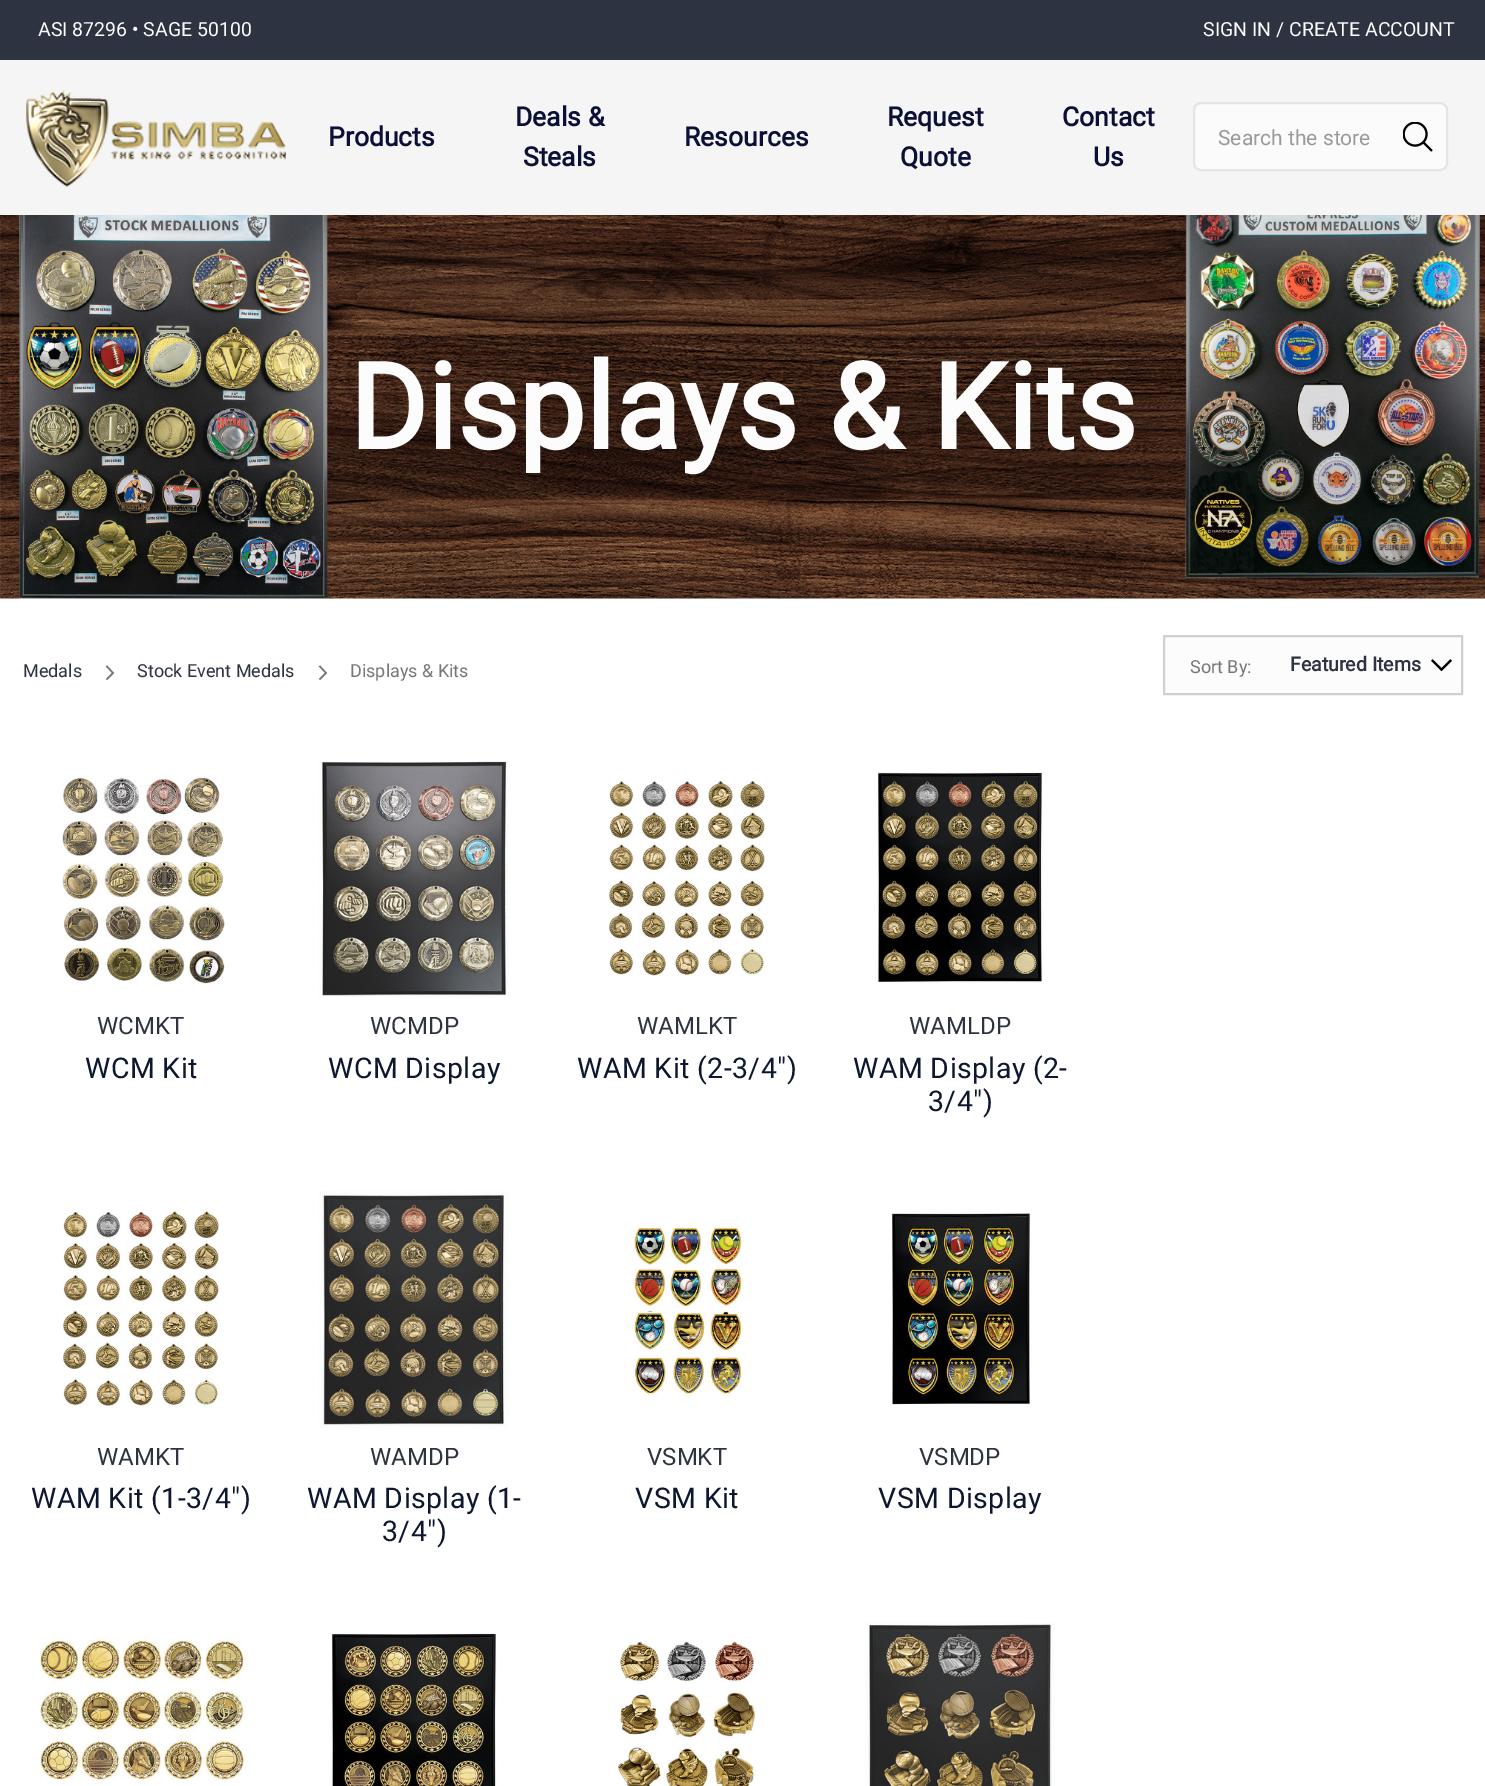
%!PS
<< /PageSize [1485 1786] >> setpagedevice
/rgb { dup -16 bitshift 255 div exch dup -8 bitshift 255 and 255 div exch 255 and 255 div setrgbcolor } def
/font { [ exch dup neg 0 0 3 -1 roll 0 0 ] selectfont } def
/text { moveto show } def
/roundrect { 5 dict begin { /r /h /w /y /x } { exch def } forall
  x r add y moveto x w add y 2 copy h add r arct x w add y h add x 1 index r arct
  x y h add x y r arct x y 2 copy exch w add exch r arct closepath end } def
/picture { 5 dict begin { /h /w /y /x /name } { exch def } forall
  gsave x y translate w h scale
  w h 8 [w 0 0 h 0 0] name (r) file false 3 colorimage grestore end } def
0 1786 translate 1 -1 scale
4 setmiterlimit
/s1 { /Roboto-Regular 19.5 font 16#FCFCFC rgb } def
/s2 { /Roboto-Bold 26.5 font 16#0B1136 rgb } def
/s3 { /Roboto-Regular 21 font 16#999999 rgb } def
/s4 { /Roboto-Regular 18 font 16#2E3342 rgb } def
/s5 { /Roboto-Regular 18 font 16#75787B rgb } def
/s6 { /Roboto-Bold 19.5 font 16#2E3342 rgb } def
/s7 { /Roboto-Regular 24 font 16#2E3342 rgb } def
16#FFFFFF rgb
0 0 1485 1786 rectfill
16#2E3342 rgb
0 0 1485 60 rectfill
s1
(ASI 87296 • SAGE 50100) 38 36 text
(SIGN IN / CREATE ACCOUNT) 1203 36 text
16#F5F5F5 rgb
0 60 1485 155 rectfill
(pic1.raw) 26 89 260 98 picture
s2
(Products) 328 146 text
(Deals &) 515 126 text
(Steals) 523 166 text
(Resources) 684 146 text
(Request) 887 126 text
(Quote) 900 166 text
(Contact) 1062 126 text
(Us) 1093 166 text
16#FBFBFB rgb
1194 103 253 67 7 roundrect gsave fill grestore
16#E5E5E5 rgb
2 setlinewidth
stroke
s3
(Search the store) 1218 145 text
(pic2.raw) 1403 122 30 30 picture
(pic3.raw) 0 215 1485 384 picture
/Roboto-Bold 118.75 font
16#FCFCFC rgb
349 449 moveto 0.4 0 (Displays & Kits) ashow
s4
(Medals) 23 677 text
16#7D7269 rgb
1.5 setlinewidth
106.5 666 moveto 113 673 lineto 106.5 679.5 lineto stroke
s4
(Stock Event Medals) 137 677 text
16#7D7269 rgb
319.5 666 moveto 326 673 lineto 319.5 679.5 lineto stroke
s5
(Displays & Kits) 350 677 text
16#FCFCFC rgb
1164 636 moveto 1462 636 lineto 1462 694 lineto 1164 694 lineto closepath gsave fill grestore
16#D0D0D0 rgb
2 setlinewidth
stroke
s5
(Sort By:) 1190 673 text
(pic4.raw) 1431 659 21 13 picture
s6
(Featured Items) 1290 671 text
(pic5.raw) 62 775 163 209 picture
s7
(WCMKT) 97 1034 text
/Roboto-Regular 28.5 font
16#0D1830 rgb
85 1078 moveto 0.4 0 (WCM Kit) ashow
(pic6.raw) 319 761 190 236 picture
s7
(WCMDP) 370 1034 text
/Roboto-Regular 28.5 font
16#0D1830 rgb
328 1078 moveto 0.4 0 (WCM Display) ashow
(pic7.raw) 609 780 156 196 picture
s7
(WAMLKT) 637 1034 text
/Roboto-Regular 28.5 font
16#0D1830 rgb
577 1078 moveto 0.4 0 (WAM Kit \(2-3/4"\)) ashow
(pic8.raw) 877 772 166 212 picture
s7
(WAMLDP) 909 1034 text
/Roboto-Regular 28.5 font
16#0D1830 rgb
853 1078 moveto 0.4 0 (WAM Display \(2-) ashow
928 1111 moveto 0.4 0 (3/4"\)) ashow
(pic9.raw) 63 1210 156 197 picture
s7
(WAMKT) 97 1465 text
/Roboto-Regular 28.5 font
16#0D1830 rgb
31 1508 moveto 0.4 0 (WAM Kit \(1-3/4"\)) ashow
(pic10.raw) 319 1191 190 237 picture
s7
(WAMDP) 370 1465 text
/Roboto-Regular 28.5 font
16#0D1830 rgb
307 1508 moveto 0.4 0 (WAM Display \(1-) ashow
382 1541 moveto 0.4 0 (3/4"\)) ashow
(pic11.raw) 633 1225 112 172 picture
s7
(VSMKT) 647 1465 text
/Roboto-Regular 28.5 font
16#0D1830 rgb
635 1508 moveto 0.4 0 (VSM Kit) ashow
(pic12.raw) 892 1211 140 194 picture
s7
(VSMDP) 919 1465 text
/Roboto-Regular 28.5 font
16#0D1830 rgb
878 1508 moveto 0.4 0 (VSM Display) ashow
(pic13.raw) 40 1636 208 148 picture
(pic14.raw) 331 1633 166 153 picture
(pic15.raw) 618 1641 138 145 picture
(pic16.raw) 865 1622 190 164 picture
showpage
